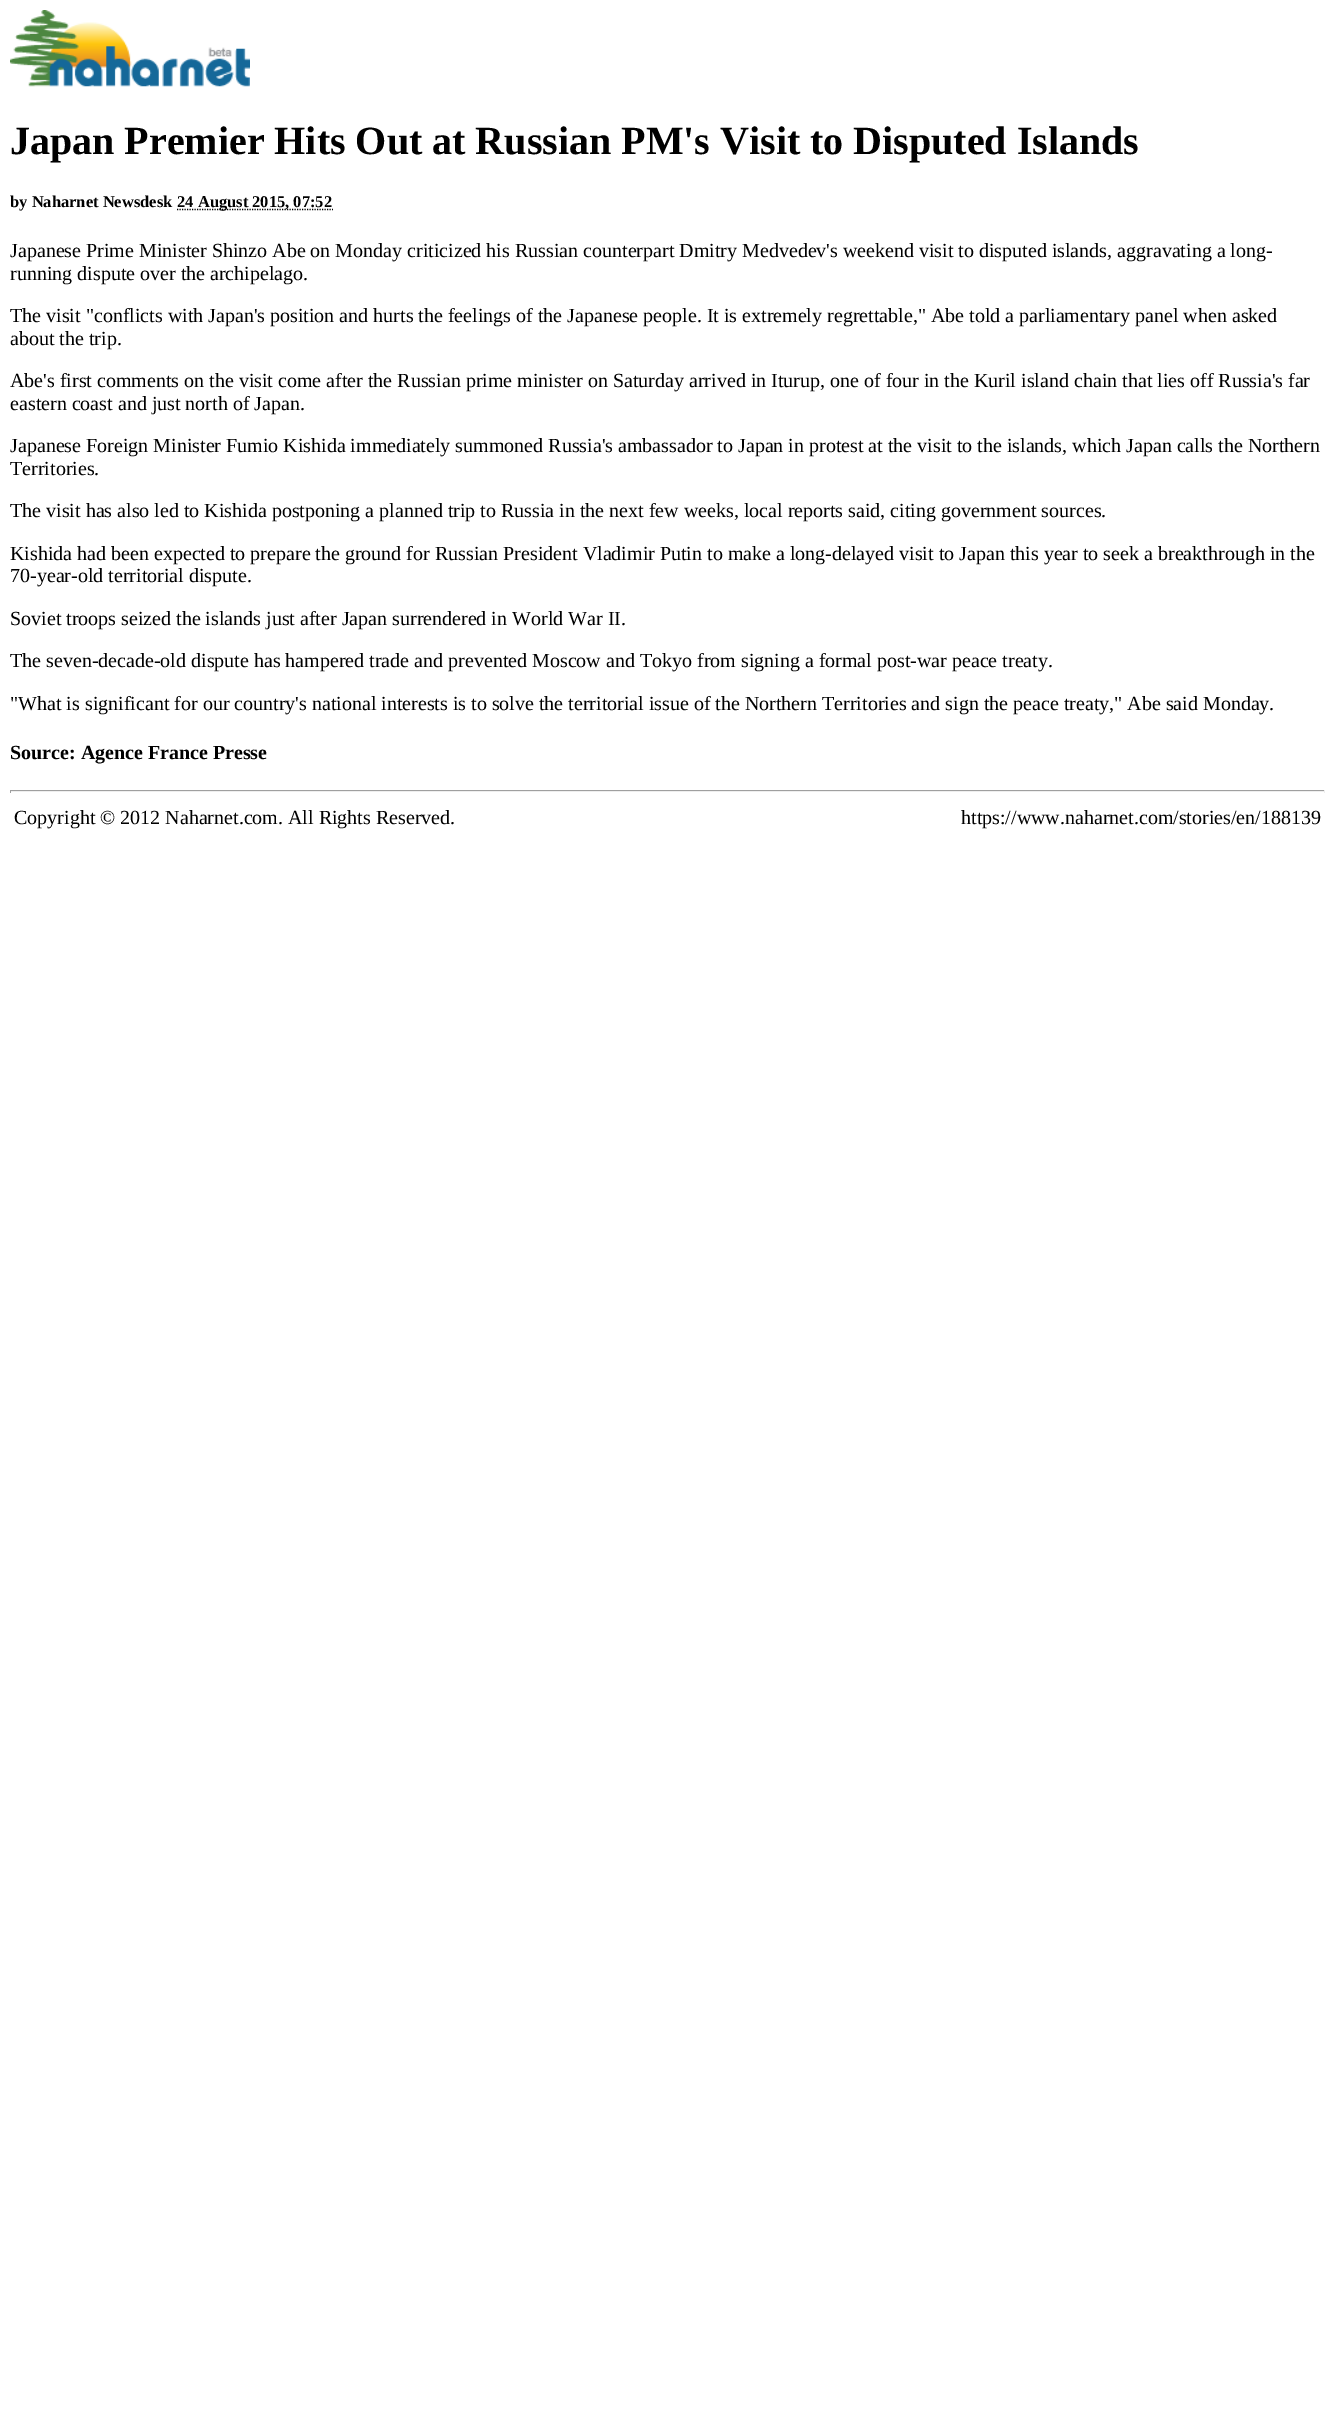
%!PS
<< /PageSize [1334 2427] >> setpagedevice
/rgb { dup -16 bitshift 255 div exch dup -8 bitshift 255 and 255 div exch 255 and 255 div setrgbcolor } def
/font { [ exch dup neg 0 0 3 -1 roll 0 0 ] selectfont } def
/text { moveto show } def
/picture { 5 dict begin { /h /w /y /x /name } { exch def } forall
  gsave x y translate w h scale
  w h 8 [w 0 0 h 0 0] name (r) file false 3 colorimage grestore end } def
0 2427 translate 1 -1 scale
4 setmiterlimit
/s1 { /LiberationSerif-Bold 40 font 16#000000 rgb } def
/s2 { /LiberationSerif-Bold 16.5 font 16#000000 rgb } def
/s3 { /LiberationSerif-Regular 20 font 16#000000 rgb } def
/s4 { /LiberationSerif-Bold 20 font 16#000000 rgb } def
16#FFFFFF rgb
0 0 1334 2427 rectfill
(pic1.raw) 10 10 240 77 picture
s1
(Japan Premier Hits Out at Russian PM's Visit to Disputed Islands) 10 154 text
s2
(by Naharnet Newsdesk) 10 207 text
1.2 setlinewidth
[1.25 1.25] 0 setdash
177 209.5 moveto 333 209.5 lineto stroke
(24 August 2015, 07:52) 177 207 text
s3
(Japanese Prime Minister Shinzo Abe on Monday criticized his Russian counterpart Dmitry Medvedev's weekend visit to disputed islands, aggravating a long-) 10 257 text
(running dispute over the archipelago.) 10 280 text
(The visit "conflicts with Japan's position and hurts the feelings of the Japanese people. It is extremely regrettable," Abe told a parliamentary panel when asked) 10 322 text
(about the trip.) 10 345 text
(Abe's first comments on the visit come after the Russian prime minister on Saturday arrived in Iturup, one of four in the Kuril island chain that lies off Russia's far) 10 387 text
(eastern coast and just north of Japan.) 10 410 text
(Japanese Foreign Minister Fumio Kishida immediately summoned Russia's ambassador to Japan in protest at the visit to the islands, which Japan calls the Northern) 10 452 text
(Territories.) 10 475 text
(The visit has also led to Kishida postponing a planned trip to Russia in the next few weeks, local reports said, citing government sources.) 10 517 text
(Kishida had been expected to prepare the ground for Russian President Vladimir Putin to make a long-delayed visit to Japan this year to seek a breakthrough in the) 10 560 text
(70-year-old territorial dispute.) 10 582 text
(Soviet troops seized the islands just after Japan surrendered in World War II.) 10 625 text
(The seven-decade-old dispute has hampered trade and prevented Moscow and Tokyo from signing a formal post-war peace treaty.) 10 667 text
("What is significant for our country's national interests is to solve the territorial issue of the Northern Territories and sign the peace treaty," Abe said Monday.) 10 710 text
s4
(Source: Agence France Presse) 10 759 text
16#9F9F9F rgb
10 790 1315 1 rectfill
16#EEEEEE rgb
1324 790 1 3 rectfill
10 791 1315 1 rectfill
16#9F9F9F rgb
10 790 1 3 rectfill
s3
(Copyright © 2012 Naharnet.com. All Rights Reserved.) 14 824 text
(https://www.naharnet.com/stories/en/188139) 961 824 text
showpage
